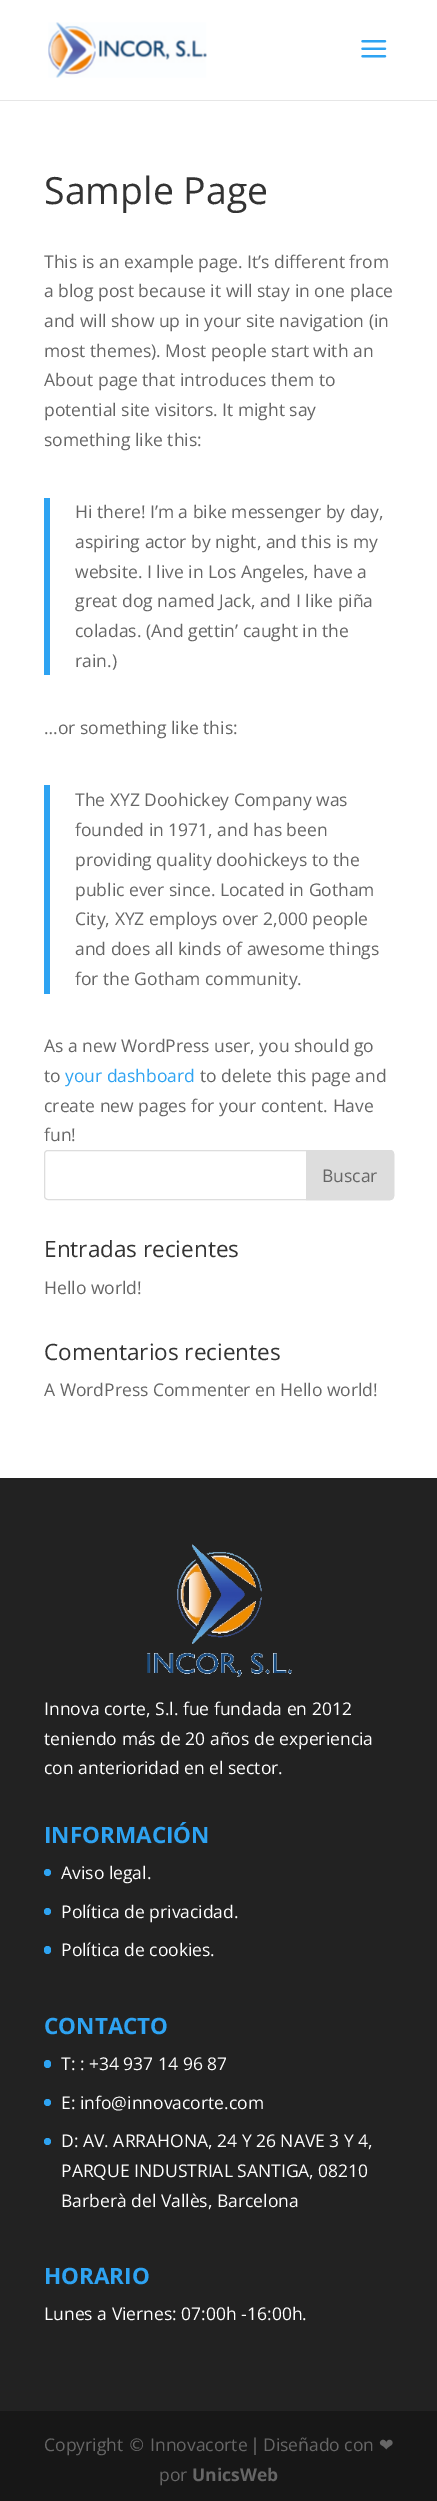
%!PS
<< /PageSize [437 2501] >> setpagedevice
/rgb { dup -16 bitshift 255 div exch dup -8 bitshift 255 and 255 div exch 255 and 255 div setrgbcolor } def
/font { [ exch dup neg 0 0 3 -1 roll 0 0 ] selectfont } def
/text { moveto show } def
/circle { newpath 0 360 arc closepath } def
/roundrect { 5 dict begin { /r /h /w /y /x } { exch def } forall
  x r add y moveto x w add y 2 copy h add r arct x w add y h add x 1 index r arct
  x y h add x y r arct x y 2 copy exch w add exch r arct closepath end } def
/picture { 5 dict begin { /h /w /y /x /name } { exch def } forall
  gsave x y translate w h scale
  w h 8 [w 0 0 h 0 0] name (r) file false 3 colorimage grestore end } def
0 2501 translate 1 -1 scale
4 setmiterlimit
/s1 { /OpenSans-Regular 37.5 font 16#333333 rgb } def
/s2 { /OpenSans-Regular 17.5 font 16#666666 rgb } def
/s3 { /OpenSans-Regular 17.5 font 16#2EA3F2 rgb } def
/s4 { /OpenSans-Regular 22.5 font 16#333333 rgb } def
/s5 { /OpenSans-Regular 17.5 font 16#FFFFFF rgb } def
/s6 { /OpenSans-Bold 22.5 font 16#2EA3F2 rgb } def
/s7 { /DejaVuSans-Regular 17.5 font 16#666666 rgb } def
/s8 { /OpenSans-Bold 17.5 font 16#666666 rgb } def
16#FFFFFF rgb
0 0 437 2501 rectfill
16#E6E6E6 rgb
0 100 moveto 0 101 lineto 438 101 lineto 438 1 lineto 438 100 lineto closepath fill
(pic1.raw) 48 22 159 56 picture
(pic2.raw) 361 40 26 18 picture
s1
(Sample Page) 44 204 text
s2
(This is an example page. It’s different from) 44 268 text
(a blog post because it will stay in one place) 44 297 text
(and will show up in your site navigation \(in) 44 327 text
(most themes\). Most people start with an) 44 357 text
(About page that introduces them to) 44 386 text
(potential site visitors. It might say) 44 416 text
(something like this:) 44 446 text
16#2EA3F2 rgb
44 498 6 177 rectfill
s2
(Hi there! I’m a bike messenger by day,) 75 518 text
(aspiring actor by night, and this is my) 75 548 text
(website. I live in Los Angeles, have a) 75 578 text
(great dog named Jack, and I like piña) 75 607 text
(coladas. \(And gettin’ caught in the) 75 637 text
(rain.\)) 75 667 text
(…or something like this:) 44 734 text
16#2EA3F2 rgb
44 785 6 209 rectfill
s2
(The XYZ Doohickey Company was) 75 806 text
(founded in 1971, and has been) 75 836 text
(providing quality doohickeys to the) 75 866 text
(public ever since. Located in Gotham) 75 896 text
(City, XYZ employs over 2,000 people) 75 925 text
(and does all kinds of awesome things) 75 955 text
(for the Gotham community.) 75 985 text
(As a new WordPress user, you should go) 44 1052 text
(to) 44 1082 text
s3
(your dashboard) 65 1082 text
s2
(to delete this page and) 200 1082 text
(create new pages for your content. Have) 44 1112 text
(fun!) 44 1141 text
16#DDDDDD rgb
44.5 1150.5 349 49 3.5 roundrect stroke
306.5 1150.5 moveto 390 1150.5 lineto 392 1150.5 393.5 1152 393.5 1154 curveto 393.5 1196 lineto 393.5 1198 392 1199.5 390 1199.5 curveto 306.5 1199.5 lineto closepath gsave fill grestore
stroke
s2
(Buscar) 322 1182 text
s4
(Entradas recientes) 44 1257 text
s2
(Hello world!) 44 1294 text
s4
(Comentarios recientes) 44 1360 text
s2
(A WordPress Commenter en Hello world!) 44 1396 text
16#222222 rgb
0 1478 437 933 rectfill
(pic3.raw) 147 1544 145 133 picture
s5
(Innova corte, S.l. fue fundada en 2012) 44 1715 text
(teniendo más de 20 años de experiencia) 44 1745 text
(con anterioridad en el sector.) 44 1774 text
s6
(INFORMACIÓN) 44 1843 text
47.5 1872.5 3.5 circle fill
s5
(Aviso legal.) 61 1879 text
16#2EA3F2 rgb
47.5 1911.5 3.5 circle fill
s5
(Política de privacidad.) 61 1918 text
16#2EA3F2 rgb
44 1946 7 8 3.5 roundrect fill
s5
(Política de cookies.) 61 1956 text
s6
(CONTACTO) 44 2034 text
44 2060 7 8 3.5 roundrect fill
s5
(T: : +34 937 14 96 87) 61 2070 text
16#2EA3F2 rgb
47.5 2102.5 3.5 circle fill
s5
(E: info@innovacorte.com) 61 2109 text
16#2EA3F2 rgb
47.5 2141.5 3.5 circle fill
s5
(D: AV. ARRAHONA, 24 Y 26 NAVE 3 Y 4,) 61 2147 text
(PARQUE INDUSTRIAL SANTIGA, 08210) 61 2177 text
(Barberà del Vallès, Barcelona) 61 2207 text
s6
(HORARIO) 44 2284 text
s5
(Lunes a Viernes: 07:00h -16:00h.) 44 2320 text
16#171717 rgb
0 2411 437 90 rectfill
s2
(Copyright) 44 2451 text
s7
(©) 128 2451 text
s2
(Innovacorte) 150 2451 text
s7
(|) 252 2451 text
s2
(Dise) 263 2451 text
s7
(ñ) 298 2451 text
s2
(ado con) 309 2451 text
s7
(❤) 379 2451 text
s2
(por) 159 2481 text
s8
(UnicsWeb) 192 2481 text
showpage
